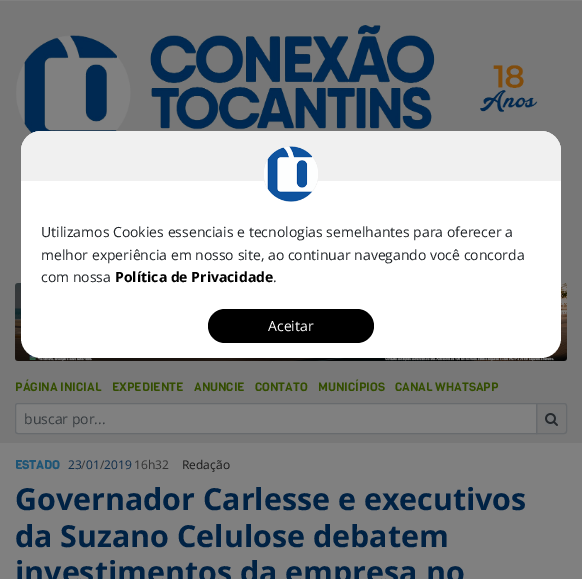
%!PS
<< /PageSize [582 579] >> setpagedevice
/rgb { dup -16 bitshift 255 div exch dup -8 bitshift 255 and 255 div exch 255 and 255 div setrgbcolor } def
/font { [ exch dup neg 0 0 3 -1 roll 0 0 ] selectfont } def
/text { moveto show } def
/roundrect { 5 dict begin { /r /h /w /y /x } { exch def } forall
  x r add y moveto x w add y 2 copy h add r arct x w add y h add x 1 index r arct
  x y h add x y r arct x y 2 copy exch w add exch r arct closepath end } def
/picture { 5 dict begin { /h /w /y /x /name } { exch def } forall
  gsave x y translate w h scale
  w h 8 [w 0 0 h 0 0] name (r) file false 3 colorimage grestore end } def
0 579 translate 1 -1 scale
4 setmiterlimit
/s1 { /OpenSans-Regular 14 font 16#212529 rgb } def
/s2 { /OpenSans-Bold 14 font 16#000000 rgb } def
/s3 { /OpenSans-Regular 14 font 16#FFFFFF rgb } def
/s4 { /Viga-Regular 12 font 16#334D00 rgb } def
/s5 { /OpenSans-Regular 14 font 16#363B3F rgb } def
/s6 { /Viga-Bold 12 font 16#1E5576 rgb } def
/s7 { /OpenSans-Regular 12 font 16#102E4B rgb } def
/s8 { /OpenSans-Regular 12 font 16#333333 rgb } def
/s9 { /OpenSans-Regular 12 font 16#1A1A1A rgb } def
/s10 { /OpenSans-Bold 30.4 font 16#002244 rgb } def
16#808080 rgb
0 0 582 579 rectfill
16#777777 rgb
0 1 582 442 rectfill
(pic2.raw) 16 25 522 109 picture
(pic3.raw) 15 283 552 78 picture
16#FFFFFF rgb
21 131 540 227 20 roundrect fill
16#F0F0F0 rgb
41 131 moveto 541 131 lineto 552 131 561 140 561 151 curveto 561 181 lineto 21 181 lineto 21 151 lineto 21 140 30 131 41 131 curveto closepath fill
(pic1.raw) 264 146 54 56 picture
s1
(Utilizamos Cookies essenciais e tecnologias semelhantes para oferecer a) 41 237 text
(melhor experiência em nosso site, ao continuar navegando você concorda) 41 260 text
(com nossa) 41 282 text
s2
(Política de Privacidade) 115 282 text
s1
(.) 273 282 text
16#000000 rgb
208 309 166 34 17 roundrect fill
s3
(Aceitar) 268 331 text
s4
(PÁGINA INICIAL) 15 391 text
(EXPEDIENTE) 112 391 text
(ANUNCIE) 194 391 text
(CONTATO) 255 391 text
(MUNICÍPIOS) 318 391 text
(CANAL WHATSAPP) 395 391 text
16#676A6D rgb
536.5 403.5 moveto 564 403.5 lineto 565.5 403.5 566.5 404.5 566.5 406 curveto 566.5 431 lineto 566.5 432.5 565.5 433.5 564 433.5 curveto 536.5 433.5 lineto closepath stroke
16#808080 rgb
18 403.5 moveto 536.5 403.5 lineto 536.5 433.5 lineto 18 433.5 lineto 16.5 433.5 15.5 432.5 15.5 431 curveto 15.5 406 lineto 15.5 404.5 16.5 403.5 18 403.5 curveto closepath gsave fill grestore
16#676A6D rgb
stroke
s5
(buscar por...) 24 424 text
(pic4.raw) 545 413 13 13 picture
s6
(ESTADO) 15 469 text
s7
(23) 68 469 text
s8
(/) 81 469 text
s7
(01) 86 469 text
s8
(/) 100 469 text
s7
(2019) 104 469 text
s8
(16h32) 134 469 text
s9
(Redação) 182 469 text
s10
(Governador Carlesse e executivos) 15 510 text
(da Suzano Celulose debatem) 15 547 text
(investimentos da empresa no) 15 583 text
showpage
